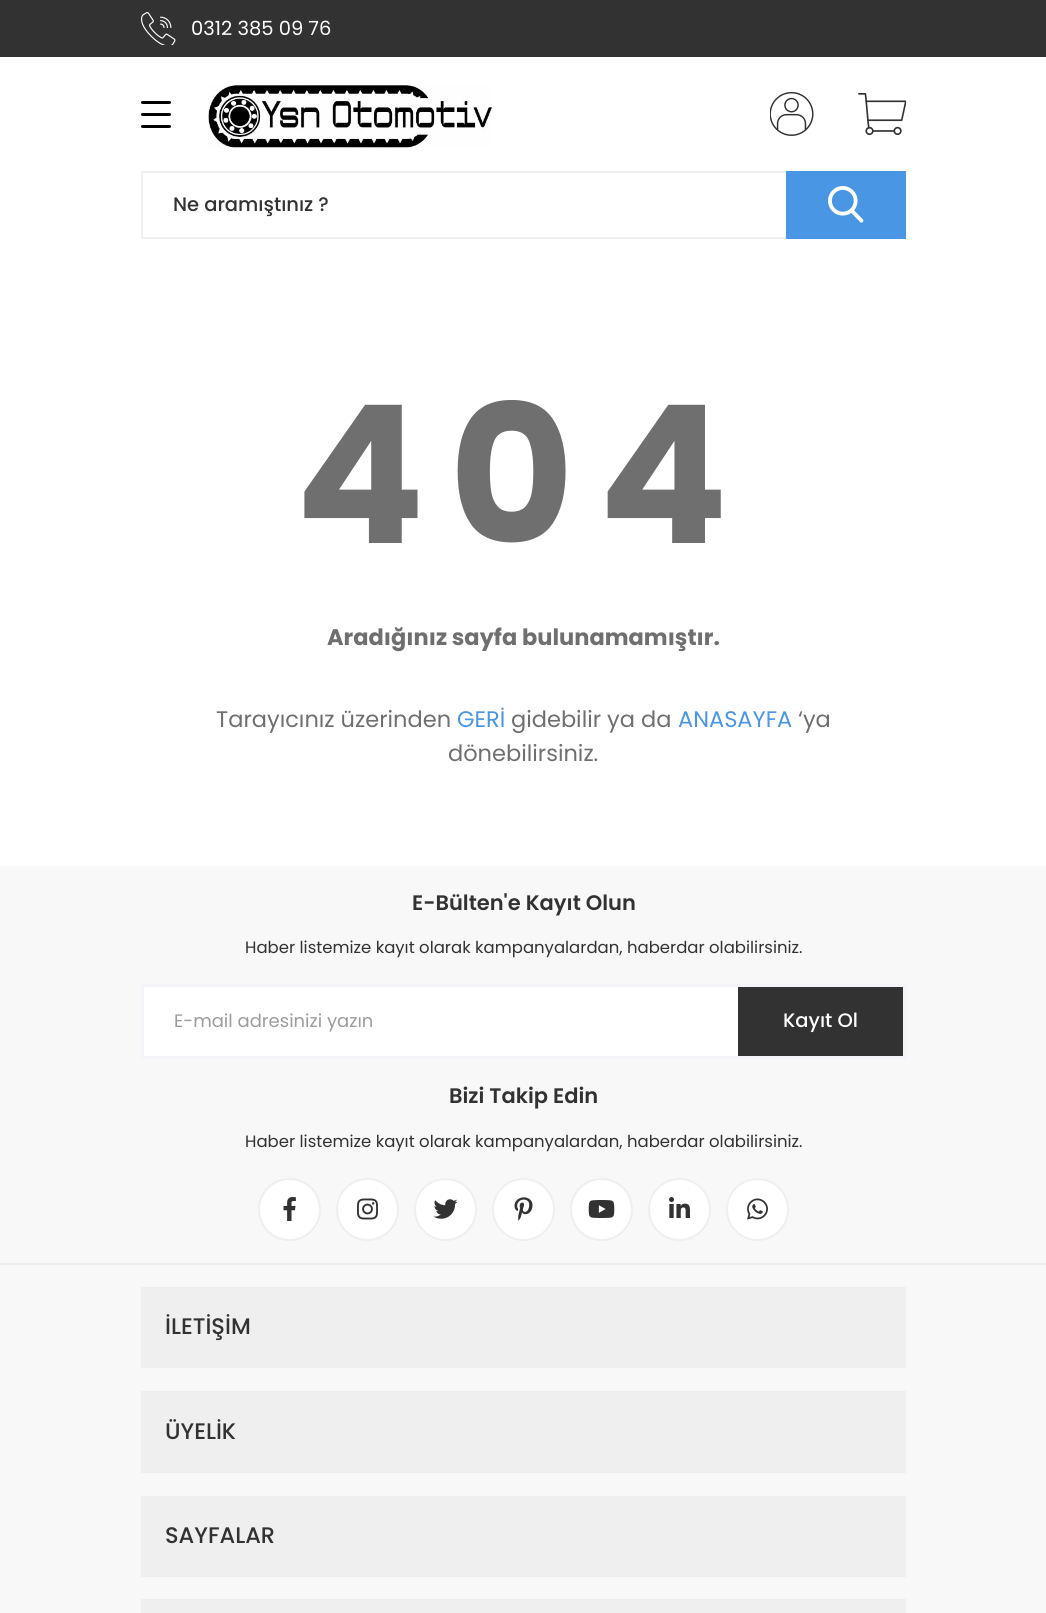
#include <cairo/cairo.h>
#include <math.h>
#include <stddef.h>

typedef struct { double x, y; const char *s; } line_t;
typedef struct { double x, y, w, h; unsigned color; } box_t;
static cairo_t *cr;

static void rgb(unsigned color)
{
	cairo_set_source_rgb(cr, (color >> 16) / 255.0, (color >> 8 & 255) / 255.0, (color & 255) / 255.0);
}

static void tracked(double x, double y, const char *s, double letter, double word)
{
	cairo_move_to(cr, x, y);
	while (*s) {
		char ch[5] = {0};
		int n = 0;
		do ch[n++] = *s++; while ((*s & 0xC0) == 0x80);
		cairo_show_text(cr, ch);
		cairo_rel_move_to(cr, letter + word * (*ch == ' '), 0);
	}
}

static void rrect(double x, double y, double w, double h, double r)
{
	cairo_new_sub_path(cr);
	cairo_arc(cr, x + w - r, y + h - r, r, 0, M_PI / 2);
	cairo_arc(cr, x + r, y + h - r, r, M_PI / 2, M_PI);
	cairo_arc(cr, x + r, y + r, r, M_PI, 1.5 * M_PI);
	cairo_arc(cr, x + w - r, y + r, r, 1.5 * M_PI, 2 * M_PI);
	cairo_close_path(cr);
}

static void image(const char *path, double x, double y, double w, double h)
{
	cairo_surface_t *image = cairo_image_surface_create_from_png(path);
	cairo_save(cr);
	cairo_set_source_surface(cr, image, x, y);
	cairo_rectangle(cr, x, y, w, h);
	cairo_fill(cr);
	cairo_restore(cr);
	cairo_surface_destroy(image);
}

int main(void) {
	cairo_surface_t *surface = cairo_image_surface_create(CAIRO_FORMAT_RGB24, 1046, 1613);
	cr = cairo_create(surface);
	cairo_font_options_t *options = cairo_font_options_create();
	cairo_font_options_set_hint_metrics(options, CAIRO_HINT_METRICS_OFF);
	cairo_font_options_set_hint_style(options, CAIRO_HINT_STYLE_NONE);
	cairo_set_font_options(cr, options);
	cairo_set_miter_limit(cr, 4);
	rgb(0xffffff);
	cairo_paint(cr);
	rgb(0x323232);
	cairo_rectangle(cr, 0, 0, 1046, 57);
	cairo_fill(cr);
	image("img/1.png", 141, 12, 35, 33);
	rgb(0x000000);
	rrect(141, 101, 30, 3, 1.5);
	cairo_fill(cr);
	rrect(141, 113, 30, 3, 1.5);
	cairo_fill(cr);
	rrect(141, 125, 30, 3, 1.5);
	cairo_fill(cr);
	image("img/2.png", 208, 85, 284, 63);
	image("img/3.png", 770, 91, 44, 45);
	image("img/4.png", 858, 93, 48, 43);
	cairo_rectangle(cr, 142, 172, 763, 66);
	rgb(0xefefef);
	cairo_stroke(cr);
	rgb(0x4996e5);
	cairo_rectangle(cr, 786, 171, 120, 68);
	cairo_fill(cr);
	image("img/5.png", 828, 186, 36, 37);
	rgb(0xf8f8f8);
	cairo_rectangle(cr, 0, 866, 1046, 747);
	cairo_fill(cr);
	rgb(0xffffff);
	cairo_rectangle(cr, 144, 987, 594, 69);
	cairo_fill(cr);
	cairo_rectangle(cr, 142.5, 985.5, 762, 72);
	rgb(0xf3f5f9);
	cairo_set_line_width(cr, 3);
	cairo_stroke(cr);
	rgb(0x323232);
	cairo_rectangle(cr, 738, 987, 165, 69);
	cairo_fill(cr);
	rgb(0xffffff);
	cairo_arc(cr, 289.5, 1209.5, 30.5, 0, 2 * M_PI);
	cairo_fill_preserve(cr);
	rgb(0xefefef);
	cairo_set_line_width(cr, 2);
	cairo_stroke(cr);
	image("img/6.png", 283, 1197, 13, 24);
	rgb(0xffffff);
	cairo_arc(cr, 367.5, 1209.5, 30.5, 0, 2 * M_PI);
	cairo_fill_preserve(cr);
	rgb(0xefefef);
	cairo_stroke(cr);
	image("img/7.png", 357, 1198, 21, 22);
	rgb(0xffffff);
	cairo_arc(cr, 445.5, 1209.5, 30.5, 0, 2 * M_PI);
	cairo_fill_preserve(cr);
	rgb(0xefefef);
	cairo_stroke(cr);
	image("img/8.png", 433, 1199, 25, 20);
	rgb(0xffffff);
	cairo_arc(cr, 523.5, 1209.5, 30.5, 0, 2 * M_PI);
	cairo_fill_preserve(cr);
	rgb(0xefefef);
	cairo_stroke(cr);
	image("img/9.png", 514, 1197, 19, 24);
	rgb(0xffffff);
	cairo_arc(cr, 601.5, 1209.5, 30.5, 0, 2 * M_PI);
	cairo_fill_preserve(cr);
	rgb(0xefefef);
	cairo_stroke(cr);
	image("img/10.png", 588, 1200, 27, 18);
	rgb(0xffffff);
	cairo_arc(cr, 679.5, 1209.5, 30.5, 0, 2 * M_PI);
	cairo_fill_preserve(cr);
	rgb(0xefefef);
	cairo_stroke(cr);
	image("img/11.png", 669, 1197, 21, 21);
	rgb(0xffffff);
	cairo_arc(cr, 757.5, 1209.5, 30.5, 0, 2 * M_PI);
	cairo_fill_preserve(cr);
	rgb(0xefefef);
	cairo_stroke(cr);
	image("img/12.png", 747, 1198, 21, 22);
	{
		static const box_t items[] = {
			{0, 1263, 1046, 2, 0xefefef},
			{141, 1287, 765, 81, 0xefefef},
			{141, 1391, 765, 82, 0xefefef},
			{141, 1496, 765, 81, 0xefefef},
			{141, 1599, 765, 14, 0xefefef},
		};
		for (size_t i = 0; i < sizeof items / sizeof *items; i++) {
			rgb(items[i].color);
			cairo_rectangle(cr, items[i].x, items[i].y, items[i].w, items[i].h);
			cairo_fill(cr);
		}
	}
	cairo_select_font_face(cr, "Poppins", CAIRO_FONT_SLANT_NORMAL, CAIRO_FONT_WEIGHT_NORMAL);
	cairo_set_font_size(cr, 19.5);
	rgb(0xffffff);
	cairo_move_to(cr, 191, 35);
	cairo_show_text(cr, "0312 385 09 76");
	cairo_select_font_face(cr, "Poppins Medium", CAIRO_FONT_SLANT_NORMAL, CAIRO_FONT_WEIGHT_NORMAL);
	rgb(0x323232);
	cairo_move_to(cr, 173, 211);
	cairo_show_text(cr, "Ne aramıştınız ?");
	cairo_select_font_face(cr, "Poppins", CAIRO_FONT_SLANT_NORMAL, CAIRO_FONT_WEIGHT_BOLD);
	cairo_set_font_size(cr, 192);
	rgb(0x6f6f6f);
	tracked(295, 543, "404", 24, 0);
	cairo_set_font_size(cr, 22.5);
	cairo_move_to(cr, 327, 645);
	cairo_show_text(cr, "Aradığınız sayfa bulunamamıştır.");
	cairo_select_font_face(cr, "Poppins", CAIRO_FONT_SLANT_NORMAL, CAIRO_FONT_WEIGHT_NORMAL);
	cairo_move_to(cr, 216, 727);
	cairo_show_text(cr, "Tarayıcınız üzerinden");
	rgb(0x4996e5);
	cairo_move_to(cr, 457, 727);
	cairo_show_text(cr, "GERİ");
	rgb(0x6f6f6f);
	cairo_move_to(cr, 511, 727);
	cairo_show_text(cr, "gidebilir ya da");
	rgb(0x4996e5);
	cairo_move_to(cr, 678, 727);
	cairo_show_text(cr, "ANASAYFA");
	rgb(0x6f6f6f);
	cairo_move_to(cr, 798, 727);
	cairo_show_text(cr, "‘ya");
	cairo_move_to(cr, 448, 761);
	cairo_show_text(cr, "dönebilirsiniz.");
	cairo_select_font_face(cr, "Poppins SemiBold", CAIRO_FONT_SLANT_NORMAL, CAIRO_FONT_WEIGHT_NORMAL);
	cairo_set_font_size(cr, 21);
	rgb(0x323232);
	cairo_move_to(cr, 412, 910);
	cairo_show_text(cr, "E-Bülten'e Kayıt Olun");
	cairo_select_font_face(cr, "Poppins", CAIRO_FONT_SLANT_NORMAL, CAIRO_FONT_WEIGHT_NORMAL);
	cairo_set_font_size(cr, 16.5);
	cairo_move_to(cr, 245, 953);
	cairo_show_text(cr, "Haber listemize kayıt olarak kampanyalardan, haberdar olabilirsiniz.");
	cairo_set_font_size(cr, 18);
	rgb(0x9c9c9c);
	cairo_move_to(cr, 174, 1027);
	cairo_show_text(cr, "E-mail adresinizi yazın");
	cairo_select_font_face(cr, "Poppins Medium", CAIRO_FONT_SLANT_NORMAL, CAIRO_FONT_WEIGHT_NORMAL);
	cairo_set_font_size(cr, 19.5);
	rgb(0xffffff);
	cairo_move_to(cr, 783, 1027);
	cairo_show_text(cr, "Kayıt Ol");
	cairo_select_font_face(cr, "Poppins SemiBold", CAIRO_FONT_SLANT_NORMAL, CAIRO_FONT_WEIGHT_NORMAL);
	cairo_set_font_size(cr, 21);
	rgb(0x323232);
	cairo_move_to(cr, 449, 1103);
	cairo_show_text(cr, "Bizi Takip Edin");
	cairo_select_font_face(cr, "Poppins", CAIRO_FONT_SLANT_NORMAL, CAIRO_FONT_WEIGHT_NORMAL);
	cairo_set_font_size(cr, 16.5);
	cairo_move_to(cr, 245, 1147);
	cairo_show_text(cr, "Haber listemize kayıt olarak kampanyalardan, haberdar olabilirsiniz.");
	cairo_select_font_face(cr, "Poppins Medium", CAIRO_FONT_SLANT_NORMAL, CAIRO_FONT_WEIGHT_NORMAL);
	cairo_set_font_size(cr, 22.5);
	{
		static const line_t items[] = {
			{165, 1334, "İLETİŞİM"},
			{165, 1439, "ÜYELİK"},
			{165, 1543, "SAYFALAR"},
		};
		for (size_t i = 0; i < sizeof items / sizeof *items; i++) {
			cairo_move_to(cr, items[i].x, items[i].y);
			cairo_show_text(cr, items[i].s);
		}
	}
	cairo_surface_write_to_png(surface, "page.png");
	cairo_font_options_destroy(options);
	cairo_destroy(cr);
	cairo_surface_destroy(surface);
	return 0;
}
